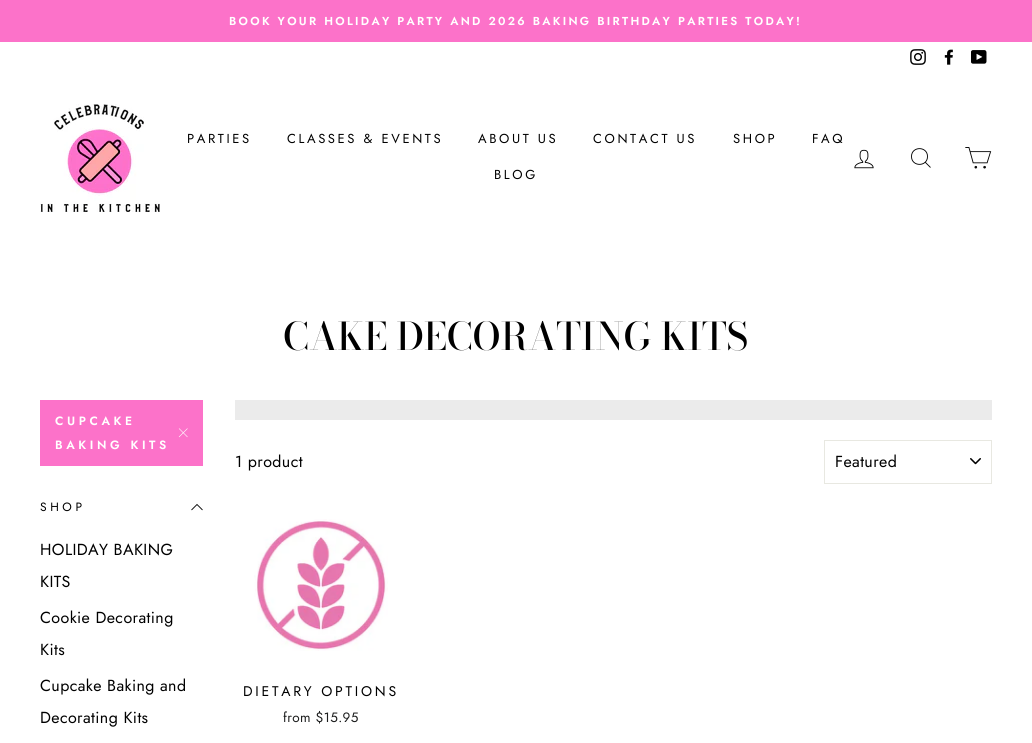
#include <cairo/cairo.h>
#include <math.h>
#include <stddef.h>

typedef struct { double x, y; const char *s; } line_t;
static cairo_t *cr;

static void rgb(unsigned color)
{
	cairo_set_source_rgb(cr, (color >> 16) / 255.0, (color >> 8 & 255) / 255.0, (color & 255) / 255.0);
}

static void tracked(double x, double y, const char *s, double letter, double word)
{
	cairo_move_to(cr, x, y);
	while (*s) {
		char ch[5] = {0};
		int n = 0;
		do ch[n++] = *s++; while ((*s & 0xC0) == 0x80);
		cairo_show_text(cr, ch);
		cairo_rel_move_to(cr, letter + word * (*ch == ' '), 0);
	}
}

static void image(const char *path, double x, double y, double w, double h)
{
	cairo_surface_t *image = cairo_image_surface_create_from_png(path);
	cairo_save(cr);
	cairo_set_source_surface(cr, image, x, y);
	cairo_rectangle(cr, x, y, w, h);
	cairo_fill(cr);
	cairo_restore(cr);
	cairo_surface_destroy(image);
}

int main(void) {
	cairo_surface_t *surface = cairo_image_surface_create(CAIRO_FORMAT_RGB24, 1032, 743);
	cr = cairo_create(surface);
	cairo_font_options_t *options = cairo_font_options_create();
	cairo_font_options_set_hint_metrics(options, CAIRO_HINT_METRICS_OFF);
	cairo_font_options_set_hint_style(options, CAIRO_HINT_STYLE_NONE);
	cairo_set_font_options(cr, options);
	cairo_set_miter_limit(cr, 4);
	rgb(0xffffff);
	cairo_paint(cr);
	rgb(0xfc72c9);
	cairo_rectangle(cr, 0, 0, 1032, 42);
	cairo_fill(cr);
	image("img/1.png", 910, 49, 16, 16);
	image("img/2.png", 944, 49, 9, 16);
	image("img/3.png", 971, 50, 16, 14);
	image("img/4.png", 40, 104, 120, 108);
	image("img/5.png", 854, 149, 20, 20);
	cairo_new_path(cr);
	cairo_move_to(cr, 927.5, 156.5);
	cairo_curve_to(cr, 927.5, 167, 911.5, 167, 911.5, 156.5);
	cairo_curve_to(cr, 911.5, 146, 927.5, 146, 927.5, 156.5);
	cairo_close_path(cr);
	cairo_move_to(cr, 930.5, 167.5);
	cairo_line_to(cr, 925.5, 162.5);
	rgb(0x000000);
	cairo_set_line_width(cr, 0.9);
	cairo_stroke(cr);
	image("img/6.png", 965, 147, 27, 22);
	rgb(0xfc72c9);
	cairo_rectangle(cr, 40, 400, 163, 66);
	cairo_fill(cr);
	cairo_new_path(cr);
	cairo_move_to(cr, 179, 428.5);
	cairo_line_to(cr, 187.5, 437);
	cairo_move_to(cr, 187.5, 428.5);
	cairo_line_to(cr, 179, 437);
	rgb(0xffffff);
	cairo_set_line_width(cr, 0.6);
	cairo_stroke(cr);
	cairo_new_path(cr);
	cairo_move_to(cr, 191.5, 510);
	cairo_line_to(cr, 197, 504.5);
	cairo_line_to(cr, 202.5, 510);
	rgb(0x000000);
	cairo_set_line_width(cr, 0.9);
	cairo_stroke(cr);
	rgb(0xebebeb);
	cairo_rectangle(cr, 235, 400, 757, 20);
	cairo_fill(cr);
	image("img/7.png", 970, 458, 11, 7);
	cairo_rectangle(cr, 824.5, 440.5, 167, 43);
	rgb(0xe8e8e1);
	cairo_set_line_width(cr, 1);
	cairo_stroke(cr);
	image("img/8.png", 254, 519, 134, 132);
	cairo_select_font_face(cr, "Jost SemiBold", CAIRO_FONT_SLANT_NORMAL, CAIRO_FONT_WEIGHT_NORMAL);
	cairo_set_font_size(cr, 11.55);
	rgb(0xffffff);
	tracked(229, 25, "BOOK YOUR HOLIDAY PARTY AND 2026 BAKING BIRTHDAY PARTIES TODAY!", 2.3, 0);
	cairo_select_font_face(cr, "Jost", CAIRO_FONT_SLANT_NORMAL, CAIRO_FONT_WEIGHT_NORMAL);
	cairo_set_font_size(cr, 13);
	rgb(0x000000);
	{
		static const line_t items[] = {
			{187, 143, "PARTIES"},
			{287, 143, "CLASSES & EVENTS"},
			{478, 143, "ABOUT US"},
			{593, 143, "CONTACT US"},
			{733, 143, "SHOP"},
			{812, 143, "FAQ"},
			{494, 179, "BLOG"},
		};
		for (size_t i = 0; i < sizeof items / sizeof *items; i++) {
			tracked(items[i].x, items[i].y, items[i].s, 2.6, 0);
		}
	}
	cairo_select_font_face(cr, "Bodoni Moda Medium", CAIRO_FONT_SLANT_NORMAL, CAIRO_FONT_WEIGHT_NORMAL);
	cairo_set_font_size(cr, 38);
	cairo_move_to(cr, 283, 350);
	cairo_show_text(cr, "CAKE DECORATING KITS");
	cairo_select_font_face(cr, "Jost SemiBold", CAIRO_FONT_SLANT_NORMAL, CAIRO_FONT_WEIGHT_NORMAL);
	cairo_set_font_size(cr, 12);
	rgb(0xffffff);
	tracked(55, 425, "CUPCAKE", 3.6, 0);
	tracked(55, 449, "BAKING KITS", 3.6, 0);
	cairo_select_font_face(cr, "Jost", CAIRO_FONT_SLANT_NORMAL, CAIRO_FONT_WEIGHT_NORMAL);
	rgb(0x000000);
	tracked(40, 511, "SHOP", 3.6, 0);
	cairo_set_font_size(cr, 16);
	{
		static const line_t items[] = {
			{40, 555, "HOLIDAY BAKING"},
			{40, 587, "KITS"},
			{40, 623, "Cookie Decorating"},
			{40, 655, "Kits"},
			{40, 691, "Cupcake Baking and"},
			{40, 723, "Decorating Kits"},
			{235, 467, "1 product"},
			{835, 467, "Featured"},
		};
		for (size_t i = 0; i < sizeof items / sizeof *items; i++) {
			tracked(items[i].x, items[i].y, items[i].s, 0.4, 0);
		}
	}
	cairo_set_font_size(cr, 14);
	tracked(243, 696, "DIETARY OPTIONS", 2.75, 0);
	cairo_set_font_size(cr, 13.5);
	rgb(0x1c1d1d);
	tracked(283, 722, "from $15.95", 0.4, 0);
	cairo_surface_write_to_png(surface, "page.png");
	cairo_font_options_destroy(options);
	cairo_destroy(cr);
	cairo_surface_destroy(surface);
	return 0;
}
